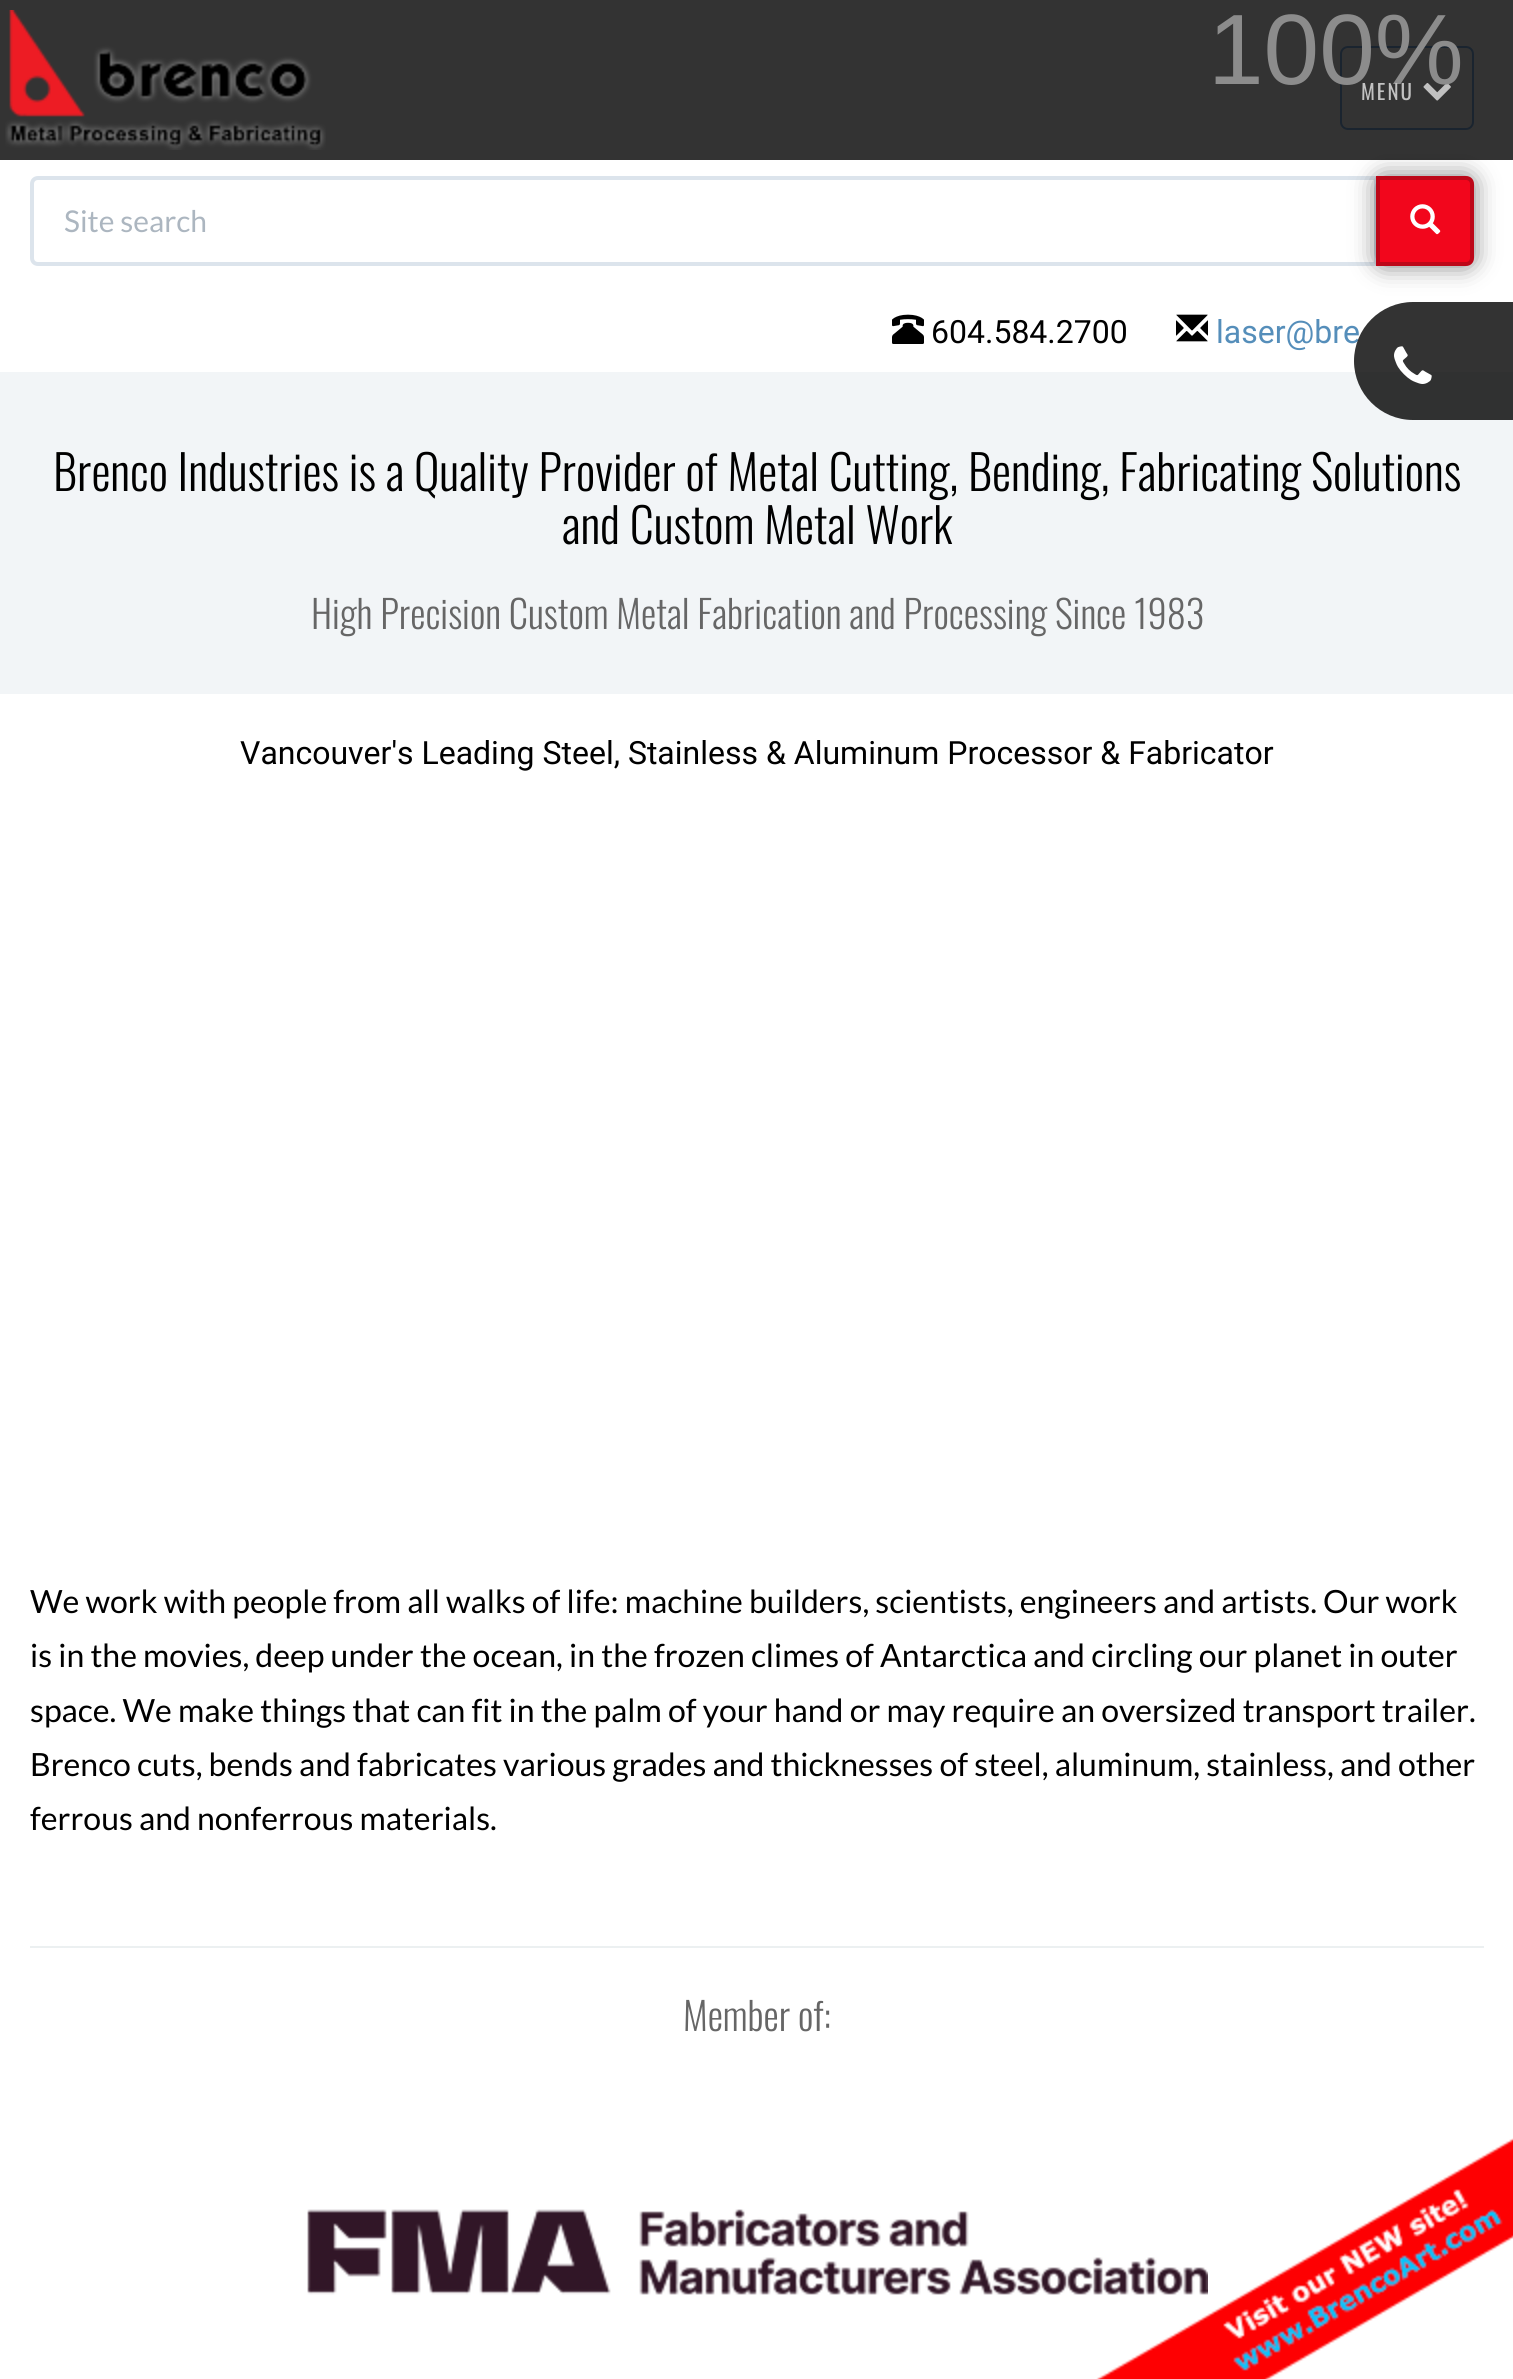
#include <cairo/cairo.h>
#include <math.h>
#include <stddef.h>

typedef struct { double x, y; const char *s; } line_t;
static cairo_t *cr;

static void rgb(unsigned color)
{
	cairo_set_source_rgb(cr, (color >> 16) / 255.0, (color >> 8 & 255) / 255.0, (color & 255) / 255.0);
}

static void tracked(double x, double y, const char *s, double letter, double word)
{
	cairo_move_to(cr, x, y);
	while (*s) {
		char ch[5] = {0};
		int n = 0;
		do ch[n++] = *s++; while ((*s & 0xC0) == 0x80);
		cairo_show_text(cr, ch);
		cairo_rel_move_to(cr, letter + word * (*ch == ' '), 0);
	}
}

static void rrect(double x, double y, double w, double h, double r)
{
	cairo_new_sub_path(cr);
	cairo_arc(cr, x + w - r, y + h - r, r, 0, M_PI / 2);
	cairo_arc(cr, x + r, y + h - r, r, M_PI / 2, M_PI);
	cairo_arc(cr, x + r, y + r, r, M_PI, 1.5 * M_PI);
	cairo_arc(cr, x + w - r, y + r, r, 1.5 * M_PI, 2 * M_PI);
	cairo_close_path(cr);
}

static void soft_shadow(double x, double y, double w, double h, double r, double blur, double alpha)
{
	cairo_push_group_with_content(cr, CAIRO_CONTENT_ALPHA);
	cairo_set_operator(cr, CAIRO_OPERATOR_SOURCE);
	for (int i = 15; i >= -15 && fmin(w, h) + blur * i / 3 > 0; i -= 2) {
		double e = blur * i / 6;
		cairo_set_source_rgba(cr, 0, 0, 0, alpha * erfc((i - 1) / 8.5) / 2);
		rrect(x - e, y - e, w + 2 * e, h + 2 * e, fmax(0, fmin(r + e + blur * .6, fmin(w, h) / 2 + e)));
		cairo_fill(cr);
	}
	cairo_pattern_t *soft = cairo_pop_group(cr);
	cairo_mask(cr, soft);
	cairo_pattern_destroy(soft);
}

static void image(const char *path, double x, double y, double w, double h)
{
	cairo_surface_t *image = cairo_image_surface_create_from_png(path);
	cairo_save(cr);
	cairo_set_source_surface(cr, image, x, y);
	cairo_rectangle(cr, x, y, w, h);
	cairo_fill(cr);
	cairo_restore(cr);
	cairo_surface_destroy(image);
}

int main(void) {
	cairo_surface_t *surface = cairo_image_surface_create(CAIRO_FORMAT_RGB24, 1513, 2379);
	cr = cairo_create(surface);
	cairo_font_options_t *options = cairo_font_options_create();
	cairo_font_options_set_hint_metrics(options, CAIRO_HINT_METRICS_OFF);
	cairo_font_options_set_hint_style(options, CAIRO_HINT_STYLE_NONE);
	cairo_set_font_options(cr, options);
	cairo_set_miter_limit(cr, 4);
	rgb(0xffffff);
	cairo_paint(cr);
	cairo_new_path(cr);
	cairo_move_to(cr, 38, 178);
	cairo_line_to(cr, 1376, 178);
	cairo_line_to(cr, 1376, 264);
	cairo_line_to(cr, 38, 264);
	cairo_curve_to(cr, 34.5, 264, 32, 261.5, 32, 258);
	cairo_line_to(cr, 32, 184);
	cairo_curve_to(cr, 32, 180.5, 34.5, 178, 38, 178);
	cairo_close_path(cr);
	rgb(0xdce4ec);
	cairo_set_line_width(cr, 4);
	cairo_stroke(cr);
	rgb(0x000000);
	soft_shadow(1376, 176, 98, 90, 8, 12, 0.5);
	cairo_set_source_rgba(cr, 0, 0, 0, 0.8);
	cairo_rectangle(cr, 0, 0, 1513, 160);
	cairo_fill(cr);
	image("img/1.png", 5, 10, 321, 140);
	rrect(1341, 47, 132, 82, 7);
	rgb(0x1a242f);
	cairo_set_line_width(cr, 2);
	cairo_stroke(cr);
	image("img/2.png", 1423, 83, 28, 18);
	rgb(0xf2061c);
	cairo_new_path(cr);
	cairo_move_to(cr, 1378, 178);
	cairo_line_to(cr, 1466, 178);
	cairo_curve_to(cr, 1469.5, 178, 1472, 180.5, 1472, 184);
	cairo_line_to(cr, 1472, 258);
	cairo_curve_to(cr, 1472, 261.5, 1469.5, 264, 1466, 264);
	cairo_line_to(cr, 1378, 264);
	cairo_close_path(cr);
	cairo_fill_preserve(cr);
	rgb(0xbd0718);
	cairo_set_line_width(cr, 4);
	cairo_stroke(cr);
	image("img/3.png", 1410, 204, 31, 31);
	image("img/4.png", 892, 314, 32, 30);
	image("img/5.png", 1176, 314, 32, 28);
	rgb(0xf2f5f7);
	cairo_rectangle(cr, 0, 372, 1513, 322);
	cairo_fill(cr);
	rgb(0xecf0f1);
	cairo_rectangle(cr, 30, 1946, 1454, 2);
	cairo_fill(cr);
	image("img/7.png", 307, 2209, 901, 86);
	image("img/8.png", 1096, 2138, 417, 241);
	cairo_select_font_face(cr, "Liberation Sans", CAIRO_FONT_SLANT_NORMAL, CAIRO_FONT_WEIGHT_NORMAL);
	cairo_set_font_size(cr, 100);
	rgb(0x8c8c8c);
	cairo_move_to(cr, 1208, 84);
	cairo_show_text(cr, "100%");
	cairo_select_font_face(cr, "Oswald", CAIRO_FONT_SLANT_NORMAL, CAIRO_FONT_WEIGHT_NORMAL);
	cairo_set_font_size(cr, 21);
	rgb(0xc2c2c2);
	tracked(1361, 100, "MENU", 2, 0);
	cairo_select_font_face(cr, "Lato", CAIRO_FONT_SLANT_NORMAL, CAIRO_FONT_WEIGHT_NORMAL);
	cairo_set_font_size(cr, 30);
	rgb(0xacb6c0);
	cairo_move_to(cr, 64, 232);
	cairo_show_text(cr, "Site search");
	cairo_select_font_face(cr, "Roboto", CAIRO_FONT_SLANT_NORMAL, CAIRO_FONT_WEIGHT_NORMAL);
	cairo_set_font_size(cr, 32);
	rgb(0x000000);
	cairo_move_to(cr, 931, 343);
	cairo_show_text(cr, "604.584.2700");
	rgb(0x558eba);
	cairo_move_to(cr, 1216, 343);
	cairo_show_text(cr, "laser@bre");
	cairo_set_source_rgba(cr, 0, 0, 0, 0.8);
	cairo_new_path(cr);
	cairo_move_to(cr, 1413, 302);
	cairo_line_to(cr, 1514, 302);
	cairo_line_to(cr, 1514, 420);
	cairo_line_to(cr, 1413, 420);
	cairo_curve_to(cr, 1380.5, 420, 1354, 393.5, 1354, 361);
	cairo_curve_to(cr, 1354, 328.5, 1380.5, 302, 1413, 302);
	cairo_close_path(cr);
	cairo_fill(cr);
	image("img/6.png", 1394, 346, 38, 38);
	cairo_select_font_face(cr, "Oswald Light", CAIRO_FONT_SLANT_NORMAL, CAIRO_FONT_WEIGHT_NORMAL);
	cairo_set_font_size(cr, 48);
	rgb(0x000000);
	cairo_move_to(cr, 53, 491);
	cairo_show_text(cr, "Brenco Industries is a Quality Provider of Metal Cutting, Bending, Fabricating Solutions");
	cairo_move_to(cr, 562, 544);
	cairo_show_text(cr, "and Custom Metal Work");
	cairo_set_font_size(cr, 38.4);
	rgb(0x666666);
	cairo_move_to(cr, 311, 629);
	cairo_show_text(cr, "High Precision Custom Metal Fabrication and Processing Since 1983");
	cairo_select_font_face(cr, "Roboto", CAIRO_FONT_SLANT_NORMAL, CAIRO_FONT_WEIGHT_NORMAL);
	cairo_set_font_size(cr, 32);
	rgb(0x000000);
	cairo_move_to(cr, 240, 764);
	cairo_show_text(cr, "Vancouver's Leading Steel, Stainless & Aluminum Processor & Fabricator");
	cairo_select_font_face(cr, "Lato", CAIRO_FONT_SLANT_NORMAL, CAIRO_FONT_WEIGHT_NORMAL);
	{
		static const line_t items[] = {
			{30, 1613, "We work with people from all walks of life: machine builders, scientists, engineers and artists. Our work"},
			{30, 1667, "is in the movies, deep under the ocean, in the frozen climes of Antarctica and circling our planet in outer"},
			{30, 1722, "space. We make things that can fit in the palm of your hand or may require an oversized transport trailer."},
			{30, 1776, "Brenco cuts, bends and fabricates various grades and thicknesses of steel, aluminum, stainless, and other"},
			{30, 1830, "ferrous and nonferrous materials."},
		};
		for (size_t i = 0; i < sizeof items / sizeof *items; i++) {
			cairo_move_to(cr, items[i].x, items[i].y);
			cairo_show_text(cr, items[i].s);
		}
	}
	cairo_select_font_face(cr, "Oswald Light", CAIRO_FONT_SLANT_NORMAL, CAIRO_FONT_WEIGHT_NORMAL);
	cairo_set_font_size(cr, 38.4);
	rgb(0x666666);
	cairo_move_to(cr, 683, 2031);
	cairo_show_text(cr, "Member of:");
	cairo_surface_write_to_png(surface, "page.png");
	cairo_font_options_destroy(options);
	cairo_destroy(cr);
	cairo_surface_destroy(surface);
	return 0;
}
